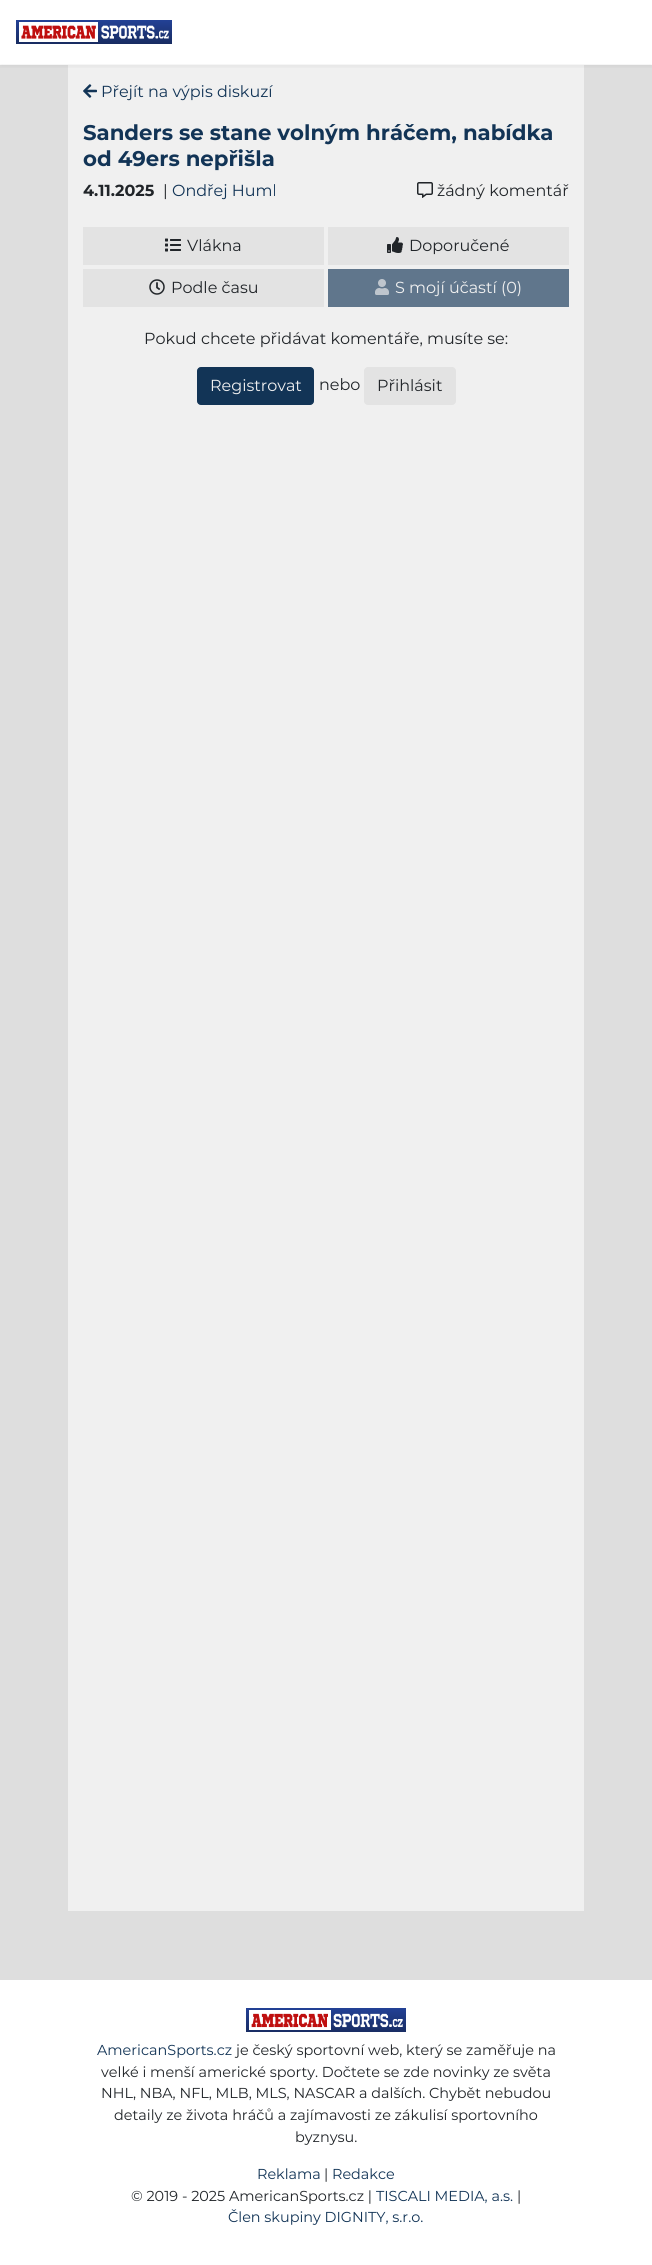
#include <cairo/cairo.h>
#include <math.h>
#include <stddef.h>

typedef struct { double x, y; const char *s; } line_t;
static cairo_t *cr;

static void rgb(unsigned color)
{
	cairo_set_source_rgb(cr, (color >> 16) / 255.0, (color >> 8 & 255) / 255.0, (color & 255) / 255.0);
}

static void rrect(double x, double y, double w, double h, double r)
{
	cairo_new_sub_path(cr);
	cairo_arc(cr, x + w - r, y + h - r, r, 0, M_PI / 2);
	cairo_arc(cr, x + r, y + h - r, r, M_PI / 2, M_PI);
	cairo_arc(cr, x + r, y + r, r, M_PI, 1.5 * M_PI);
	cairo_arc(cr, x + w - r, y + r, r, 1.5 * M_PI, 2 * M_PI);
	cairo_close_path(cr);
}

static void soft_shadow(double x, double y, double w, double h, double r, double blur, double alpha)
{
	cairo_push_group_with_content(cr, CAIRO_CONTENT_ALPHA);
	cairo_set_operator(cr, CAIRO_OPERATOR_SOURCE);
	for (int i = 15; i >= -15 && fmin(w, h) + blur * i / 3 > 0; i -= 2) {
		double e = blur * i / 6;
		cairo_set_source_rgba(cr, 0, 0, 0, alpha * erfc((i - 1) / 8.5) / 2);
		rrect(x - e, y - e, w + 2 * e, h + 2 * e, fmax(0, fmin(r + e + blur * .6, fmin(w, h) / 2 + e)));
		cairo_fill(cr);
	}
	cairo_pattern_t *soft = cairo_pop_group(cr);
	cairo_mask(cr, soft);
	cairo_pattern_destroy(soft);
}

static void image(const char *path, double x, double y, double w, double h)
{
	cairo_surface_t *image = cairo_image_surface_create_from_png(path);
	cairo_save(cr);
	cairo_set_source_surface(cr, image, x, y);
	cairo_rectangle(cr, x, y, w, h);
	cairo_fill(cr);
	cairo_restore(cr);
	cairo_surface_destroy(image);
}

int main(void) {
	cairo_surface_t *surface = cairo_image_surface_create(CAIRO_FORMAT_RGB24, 652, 2265);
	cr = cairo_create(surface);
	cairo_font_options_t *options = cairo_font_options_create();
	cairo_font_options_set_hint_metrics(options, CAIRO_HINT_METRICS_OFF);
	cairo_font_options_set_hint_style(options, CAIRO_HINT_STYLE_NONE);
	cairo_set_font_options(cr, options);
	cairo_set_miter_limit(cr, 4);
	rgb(0xdedede);
	cairo_paint(cr);
	rgb(0xffffff);
	cairo_rectangle(cr, 0, 0, 652, 65);
	cairo_fill(cr);
	rgb(0xf0f0f0);
	cairo_rectangle(cr, 68, 65, 516, 1846);
	cairo_fill(cr);
	cairo_save(cr);
	cairo_rectangle(cr, 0, 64, 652, 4);
	cairo_clip(cr);
	rgb(0x000000);
	soft_shadow(0, 3, 652, 64, 0, 3, 0.05);
	cairo_restore(cr);
	image("img/1.png", 16, 20, 156, 24);
	image("img/2.png", 83, 84, 14, 14);
	image("img/3.png", 417, 182, 16, 16);
	rgb(0xe3e3e3);
	cairo_rectangle(cr, 83, 227, 241, 38);
	cairo_fill(cr);
	image("img/4.png", 165, 238, 16, 14);
	cairo_rectangle(cr, 328, 227, 241, 38);
	cairo_fill(cr);
	image("img/5.png", 387, 237, 16, 16);
	cairo_rectangle(cr, 83, 269, 241, 38);
	cairo_fill(cr);
	image("img/6.png", 149, 279, 16, 16);
	rgb(0x60768c);
	cairo_rectangle(cr, 328, 269, 241, 38);
	cairo_fill(cr);
	image("img/7.png", 375, 279, 14, 16);
	rgb(0x123456);
	rrect(197.5, 367.5, 116, 37, 3.5);
	cairo_fill_preserve(cr);
	cairo_set_line_width(cr, 1);
	cairo_stroke(cr);
	rgb(0xe3e3e3);
	rrect(364, 367, 92, 38, 4);
	cairo_fill(cr);
	rgb(0xffffff);
	cairo_rectangle(cr, 0, 1980, 652, 285);
	cairo_fill(cr);
	image("img/8.png", 246, 2008, 160, 24);
	cairo_select_font_face(cr, "Montserrat", CAIRO_FONT_SLANT_NORMAL, CAIRO_FONT_WEIGHT_NORMAL);
	cairo_set_font_size(cr, 16);
	rgb(0x123456);
	cairo_move_to(cr, 101, 97);
	cairo_show_text(cr, "Přejít na výpis diskuzí");
	cairo_select_font_face(cr, "Montserrat", CAIRO_FONT_SLANT_NORMAL, CAIRO_FONT_WEIGHT_BOLD);
	cairo_set_font_size(cr, 21.25);
	cairo_move_to(cr, 83, 140);
	cairo_show_text(cr, "Sanders se stane volným hráčem, nabídka");
	cairo_move_to(cr, 83, 166);
	cairo_show_text(cr, "od 49ers nepřišla");
	cairo_set_font_size(cr, 16);
	rgb(0x212529);
	cairo_move_to(cr, 83, 196);
	cairo_show_text(cr, "4.11.2025");
	cairo_select_font_face(cr, "Montserrat", CAIRO_FONT_SLANT_NORMAL, CAIRO_FONT_WEIGHT_NORMAL);
	cairo_move_to(cr, 163, 196);
	cairo_show_text(cr, "|");
	rgb(0x123456);
	cairo_move_to(cr, 172, 196);
	cairo_show_text(cr, "Ondřej Huml");
	rgb(0x212529);
	{
		static const line_t items[] = {
			{437, 196, "žádný komentář"},
			{187, 251, "Vlákna"},
			{409, 251, "Doporučené"},
			{171, 293, "Podle času"},
		};
		for (size_t i = 0; i < sizeof items / sizeof *items; i++) {
			cairo_move_to(cr, items[i].x, items[i].y);
			cairo_show_text(cr, items[i].s);
		}
	}
	rgb(0xf0f0f0);
	cairo_move_to(cr, 395, 293);
	cairo_show_text(cr, "S mojí účastí (0)");
	rgb(0x212529);
	cairo_move_to(cr, 144, 344);
	cairo_show_text(cr, "Pokud chcete přidávat komentáře, musíte se:");
	rgb(0xf0f0f0);
	cairo_move_to(cr, 210, 391);
	cairo_show_text(cr, "Registrovat");
	rgb(0x212529);
	cairo_move_to(cr, 319, 390);
	cairo_show_text(cr, "nebo");
	cairo_move_to(cr, 377, 391);
	cairo_show_text(cr, "Přihlásit");
	cairo_set_font_size(cr, 14.4);
	rgb(0x123456);
	cairo_move_to(cr, 97, 2055);
	cairo_show_text(cr, "AmericanSports.cz");
	rgb(0x212529);
	{
		static const line_t items[] = {
			{236, 2055, "je český sportovní web, který se zaměřuje na"},
			{101, 2077, "velké i menší americké sporty. Dočtete se zde novinky ze světa"},
			{101, 2098, "NHL, NBA, NFL, MLB, MLS, NASCAR a dalších. Chybět nebudou"},
			{114, 2120, "detaily ze života hráčů a zajímavosti ze zákulisí sportovního"},
			{295, 2142, "byznysu."},
		};
		for (size_t i = 0; i < sizeof items / sizeof *items; i++) {
			cairo_move_to(cr, items[i].x, items[i].y);
			cairo_show_text(cr, items[i].s);
		}
	}
	rgb(0x123456);
	cairo_move_to(cr, 257, 2179);
	cairo_show_text(cr, "Reklama");
	rgb(0x212529);
	cairo_move_to(cr, 324, 2179);
	cairo_show_text(cr, "|");
	rgb(0x123456);
	cairo_move_to(cr, 332, 2179);
	cairo_show_text(cr, "Redakce");
	rgb(0x212529);
	cairo_move_to(cr, 131, 2201);
	cairo_show_text(cr, "© 2019 - 2025 AmericanSports.cz |");
	rgb(0x123456);
	cairo_move_to(cr, 376, 2201);
	cairo_show_text(cr, "TISCALI MEDIA, a.s.");
	rgb(0x212529);
	cairo_move_to(cr, 517, 2201);
	cairo_show_text(cr, "|");
	rgb(0x123456);
	cairo_move_to(cr, 228, 2222);
	cairo_show_text(cr, "Člen skupiny DIGNITY, s.r.o.");
	cairo_surface_write_to_png(surface, "page.png");
	cairo_font_options_destroy(options);
	cairo_destroy(cr);
	cairo_surface_destroy(surface);
	return 0;
}
